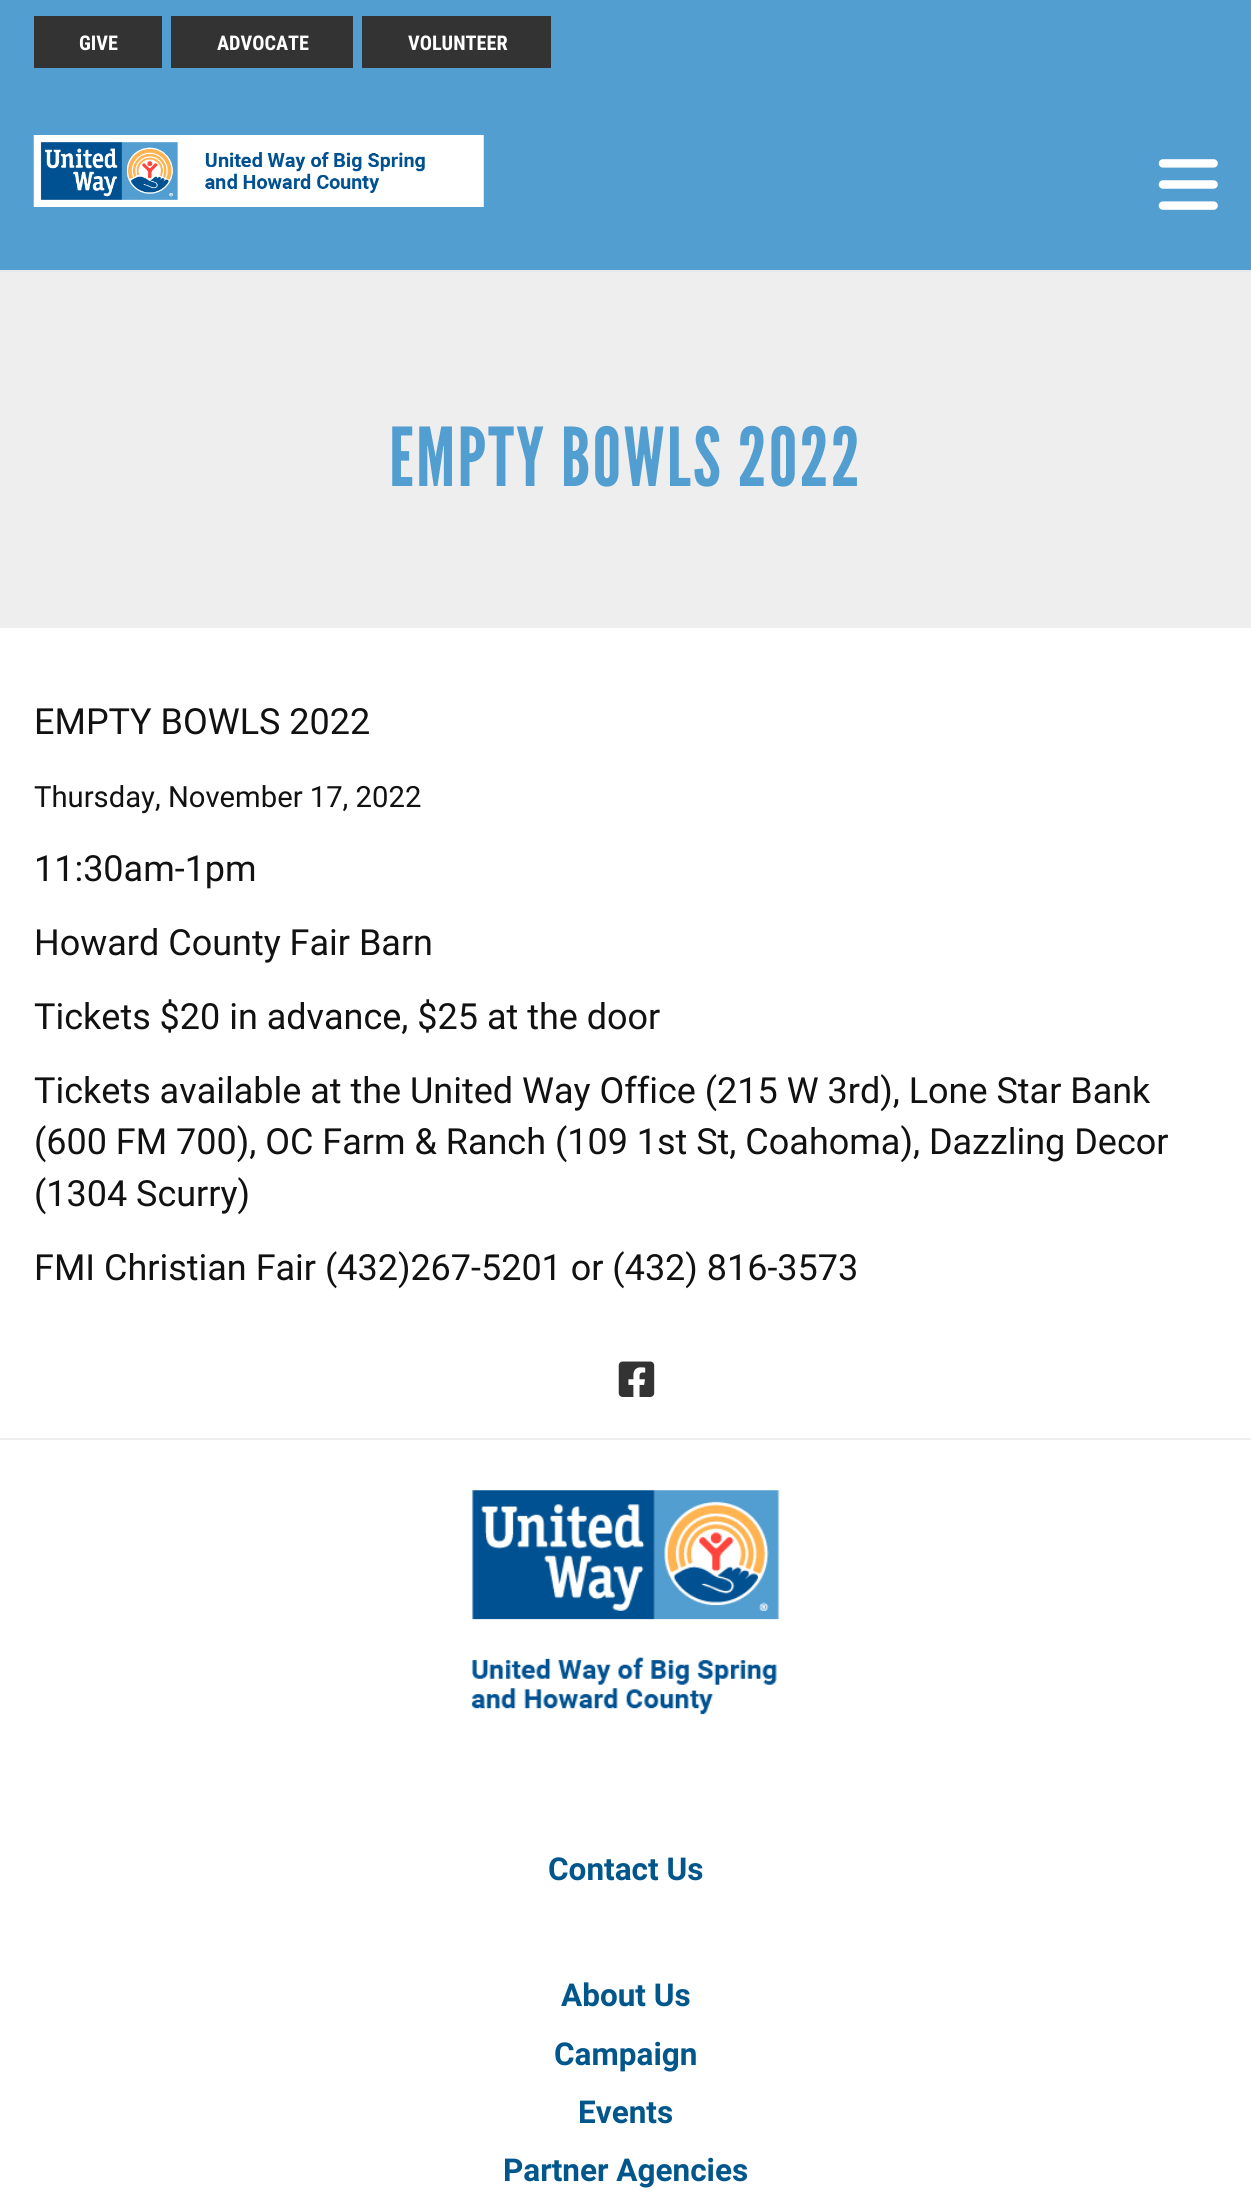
#include <cairo/cairo.h>
#include <math.h>
#include <stddef.h>

typedef struct { double x, y; const char *s; } line_t;
typedef struct { double x, y, w, h; unsigned color; } box_t;
static cairo_t *cr;

static void rgb(unsigned color)
{
	cairo_set_source_rgb(cr, (color >> 16) / 255.0, (color >> 8 & 255) / 255.0, (color & 255) / 255.0);
}

static void tracked(double x, double y, const char *s, double letter, double word)
{
	cairo_move_to(cr, x, y);
	while (*s) {
		char ch[5] = {0};
		int n = 0;
		do ch[n++] = *s++; while ((*s & 0xC0) == 0x80);
		cairo_show_text(cr, ch);
		cairo_rel_move_to(cr, letter + word * (*ch == ' '), 0);
	}
}

static void image(const char *path, double x, double y, double w, double h)
{
	cairo_surface_t *image = cairo_image_surface_create_from_png(path);
	cairo_save(cr);
	cairo_set_source_surface(cr, image, x, y);
	cairo_rectangle(cr, x, y, w, h);
	cairo_fill(cr);
	cairo_restore(cr);
	cairo_surface_destroy(image);
}

int main(void) {
	cairo_surface_t *surface = cairo_image_surface_create(CAIRO_FORMAT_RGB24, 1251, 2195);
	cr = cairo_create(surface);
	cairo_font_options_t *options = cairo_font_options_create();
	cairo_font_options_set_hint_metrics(options, CAIRO_HINT_METRICS_OFF);
	cairo_font_options_set_hint_style(options, CAIRO_HINT_STYLE_NONE);
	cairo_set_font_options(cr, options);
	cairo_set_miter_limit(cr, 4);
	rgb(0xffffff);
	cairo_paint(cr);
	rgb(0x539ed0);
	cairo_rectangle(cr, 0, 0, 1251, 270);
	cairo_fill(cr);
	rgb(0xe4e9ec);
	cairo_rectangle(cr, 0, 270, 1251, 2);
	cairo_fill(cr);
	image("img/1.png", 33, 135, 451, 72);
	image("img/2.png", 1158, 159, 60, 51);
	{
		static const box_t items[] = {
			{34, 16, 128, 52, 0x333333},
			{171, 16, 182, 52, 0x333333},
			{362, 16, 189, 52, 0x333333},
			{0, 272, 1251, 356, 0xeeeeee},
		};
		for (size_t i = 0; i < sizeof items / sizeof *items; i++) {
			rgb(items[i].color);
			cairo_rectangle(cr, items[i].x, items[i].y, items[i].w, items[i].h);
			cairo_fill(cr);
		}
	}
	image("img/3.png", 618, 1361, 37, 36);
	rgb(0xefefef);
	cairo_rectangle(cr, 0, 1438, 1251, 2);
	cairo_fill(cr);
	image("img/4.png", 471, 1490, 309, 225);
	cairo_select_font_face(cr, "Roboto Condensed", CAIRO_FONT_SLANT_NORMAL, CAIRO_FONT_WEIGHT_BOLD);
	cairo_set_font_size(cr, 20.25);
	rgb(0xffffff);
	{
		static const line_t items[] = {
			{79, 50, "GIVE"},
			{217, 50, "ADVOCATE"},
			{408, 50, "VOLUNTEER"},
		};
		for (size_t i = 0; i < sizeof items / sizeof *items; i++) {
			cairo_move_to(cr, items[i].x, items[i].y);
			cairo_show_text(cr, items[i].s);
		}
	}
	cairo_select_font_face(cr, "League Gothic", CAIRO_FONT_SLANT_NORMAL, CAIRO_FONT_WEIGHT_NORMAL);
	cairo_set_font_size(cr, 81);
	rgb(0x539ed0);
	tracked(389, 486, "EMPTY BOWLS 2022", 2.25, 0);
	cairo_select_font_face(cr, "Roboto", CAIRO_FONT_SLANT_NORMAL, CAIRO_FONT_WEIGHT_NORMAL);
	cairo_set_font_size(cr, 36);
	rgb(0x111111);
	cairo_move_to(cr, 34, 734);
	cairo_show_text(cr, "EMPTY BOWLS 2022");
	cairo_set_font_size(cr, 29.25);
	cairo_move_to(cr, 34, 807);
	cairo_show_text(cr, "Thursday, November 17, 2022");
	cairo_set_font_size(cr, 36);
	{
		static const line_t items[] = {
			{34, 881, "11:30am-1pm"},
			{34, 955, "Howard County Fair Barn"},
			{34, 1029, "Tickets $20 in advance, $25 at the door"},
			{34, 1103, "Tickets available at the United Way Office (215 W 3rd), Lone Star Bank"},
			{34, 1154, "(600 FM 700), OC Farm & Ranch (109 1st St, Coahoma), Dazzling Decor"},
			{34, 1206, "(1304 Scurry)"},
			{34, 1280, "FMI Christian Fair (432)267-5201 or (432) 816-3573"},
		};
		for (size_t i = 0; i < sizeof items / sizeof *items; i++) {
			cairo_move_to(cr, items[i].x, items[i].y);
			cairo_show_text(cr, items[i].s);
		}
	}
	cairo_select_font_face(cr, "Roboto", CAIRO_FONT_SLANT_NORMAL, CAIRO_FONT_WEIGHT_BOLD);
	cairo_set_font_size(cr, 31.5);
	rgb(0x01568c);
	{
		static const line_t items[] = {
			{548, 1880, "Contact Us"},
			{561, 2006, "About Us"},
			{554, 2065, "Campaign"},
			{578, 2123, "Events"},
			{503, 2181, "Partner Agencies"},
		};
		for (size_t i = 0; i < sizeof items / sizeof *items; i++) {
			cairo_move_to(cr, items[i].x, items[i].y);
			cairo_show_text(cr, items[i].s);
		}
	}
	cairo_surface_write_to_png(surface, "page.png");
	cairo_font_options_destroy(options);
	cairo_destroy(cr);
	cairo_surface_destroy(surface);
	return 0;
}
